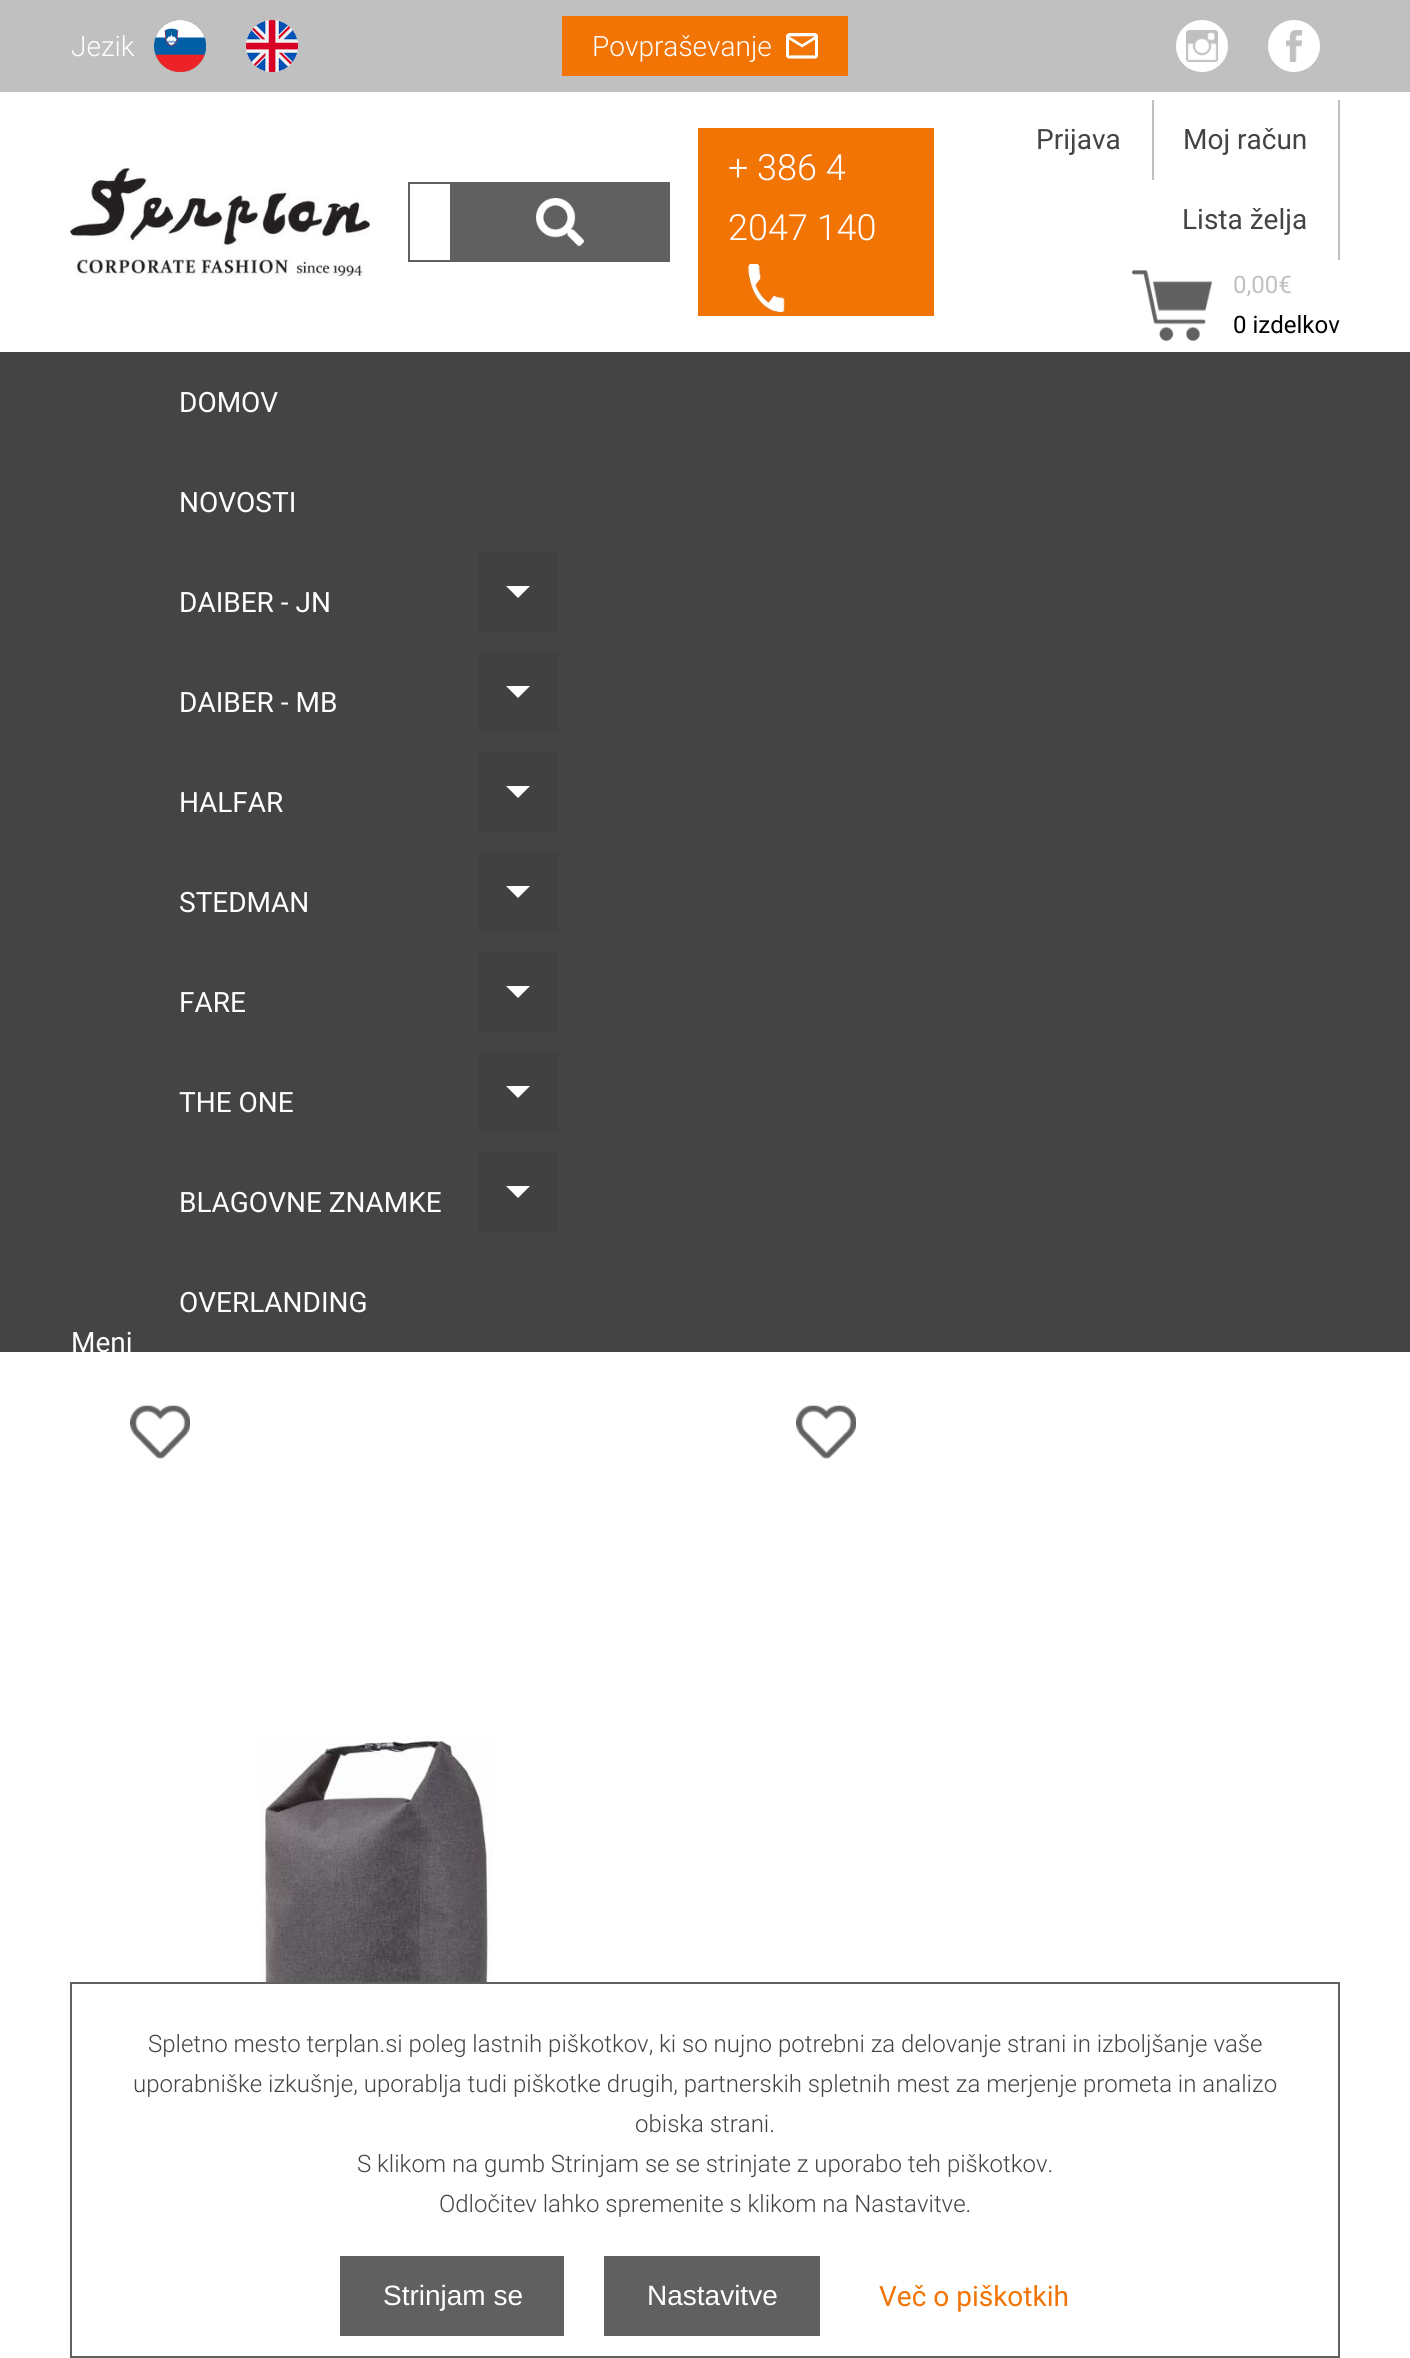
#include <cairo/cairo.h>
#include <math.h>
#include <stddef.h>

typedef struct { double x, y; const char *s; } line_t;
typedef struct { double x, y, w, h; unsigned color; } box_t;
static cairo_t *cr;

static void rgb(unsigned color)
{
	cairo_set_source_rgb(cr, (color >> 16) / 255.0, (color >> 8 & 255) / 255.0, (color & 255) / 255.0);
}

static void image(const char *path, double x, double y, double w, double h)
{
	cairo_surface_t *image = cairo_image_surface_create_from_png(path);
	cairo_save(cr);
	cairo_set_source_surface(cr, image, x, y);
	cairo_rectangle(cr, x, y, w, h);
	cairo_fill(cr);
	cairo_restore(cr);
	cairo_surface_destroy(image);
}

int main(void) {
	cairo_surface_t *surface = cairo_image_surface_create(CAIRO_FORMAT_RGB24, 1410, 2358);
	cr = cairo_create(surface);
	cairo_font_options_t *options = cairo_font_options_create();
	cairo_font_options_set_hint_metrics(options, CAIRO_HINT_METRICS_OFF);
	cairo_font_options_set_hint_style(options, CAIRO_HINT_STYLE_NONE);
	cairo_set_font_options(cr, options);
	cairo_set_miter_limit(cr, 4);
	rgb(0xffffff);
	cairo_paint(cr);
	rgb(0xc0c0c0);
	cairo_rectangle(cr, 0, 0, 1410, 92);
	cairo_fill(cr);
	image("img/1.png", 154, 20, 52, 52);
	image("img/2.png", 246, 20, 52, 52);
	rgb(0xf27405);
	cairo_rectangle(cr, 562, 16, 286, 60);
	cairo_fill(cr);
	image("img/3.png", 786, 33, 32, 26);
	rgb(0xffffff);
	cairo_arc(cr, 1202, 46, 36, 0, 2 * M_PI);
	cairo_fill_preserve(cr);
	rgb(0xc0c0c0);
	cairo_set_line_width(cr, 20);
	cairo_stroke(cr);
	image("img/4.png", 1186, 30, 32, 32);
	rgb(0xffffff);
	cairo_arc(cr, 1294, 46, 36, 0, 2 * M_PI);
	cairo_fill_preserve(cr);
	rgb(0xc0c0c0);
	cairo_stroke(cr);
	image("img/5.png", 1286, 30, 16, 32);
	image("img/6.png", 70, 167, 300, 112);
	{
		static const box_t items[] = {
			{408, 182, 42, 2, 0x606060},
			{408, 260, 42, 2, 0x606060},
			{408, 182, 2, 80, 0x606060},
			{450, 182, 220, 80, 0x606060},
		};
		for (size_t i = 0; i < sizeof items / sizeof *items; i++) {
			rgb(items[i].color);
			cairo_rectangle(cr, items[i].x, items[i].y, items[i].w, items[i].h);
			cairo_fill(cr);
		}
	}
	image("img/7.png", 536, 198, 48, 48);
	rgb(0xf27405);
	cairo_rectangle(cr, 698, 128, 236, 188);
	cairo_fill(cr);
	image("img/8.png", 748, 264, 37, 48);
	rgb(0xc0c0c0);
	cairo_rectangle(cr, 1152, 100, 2, 80);
	cairo_fill(cr);
	cairo_rectangle(cr, 1338, 100, 2, 160);
	cairo_fill(cr);
	image("img/9.png", 1132, 270, 80, 71);
	rgb(0x444444);
	cairo_rectangle(cr, 0, 352, 1410, 1000);
	cairo_fill(cr);
	rgb(0x414141);
	cairo_rectangle(cr, 478, 552, 80, 80);
	cairo_fill(cr);
	rgb(0xffffff);
	cairo_new_path(cr);
	cairo_move_to(cr, 506, 586);
	cairo_line_to(cr, 530, 586);
	cairo_line_to(cr, 518, 598);
	cairo_close_path(cr);
	cairo_fill(cr);
	rgb(0x414141);
	cairo_rectangle(cr, 478, 652, 80, 80);
	cairo_fill(cr);
	rgb(0xffffff);
	cairo_new_path(cr);
	cairo_move_to(cr, 506, 686);
	cairo_line_to(cr, 530, 686);
	cairo_line_to(cr, 518, 698);
	cairo_close_path(cr);
	cairo_fill(cr);
	rgb(0x414141);
	cairo_rectangle(cr, 478, 752, 80, 80);
	cairo_fill(cr);
	rgb(0xffffff);
	cairo_new_path(cr);
	cairo_move_to(cr, 506, 786);
	cairo_line_to(cr, 530, 786);
	cairo_line_to(cr, 518, 798);
	cairo_close_path(cr);
	cairo_fill(cr);
	rgb(0x414141);
	cairo_rectangle(cr, 478, 852, 80, 80);
	cairo_fill(cr);
	rgb(0xffffff);
	cairo_new_path(cr);
	cairo_move_to(cr, 506, 886);
	cairo_line_to(cr, 530, 886);
	cairo_line_to(cr, 518, 898);
	cairo_close_path(cr);
	cairo_fill(cr);
	rgb(0x414141);
	cairo_rectangle(cr, 478, 952, 80, 80);
	cairo_fill(cr);
	rgb(0xffffff);
	cairo_new_path(cr);
	cairo_move_to(cr, 506, 986);
	cairo_line_to(cr, 530, 986);
	cairo_line_to(cr, 518, 998);
	cairo_close_path(cr);
	cairo_fill(cr);
	rgb(0x414141);
	cairo_rectangle(cr, 478, 1052, 80, 80);
	cairo_fill(cr);
	rgb(0xffffff);
	cairo_new_path(cr);
	cairo_move_to(cr, 506, 1086);
	cairo_line_to(cr, 530, 1086);
	cairo_line_to(cr, 518, 1098);
	cairo_close_path(cr);
	cairo_fill(cr);
	rgb(0x414141);
	cairo_rectangle(cr, 478, 1152, 80, 80);
	cairo_fill(cr);
	rgb(0xffffff);
	cairo_new_path(cr);
	cairo_move_to(cr, 506, 1186);
	cairo_line_to(cr, 530, 1186);
	cairo_line_to(cr, 518, 1198);
	cairo_close_path(cr);
	cairo_fill(cr);
	image("img/10.png", 130, 1405, 60, 54);
	image("img/11.png", 796, 1405, 60, 54);
	image("img/12.png", 260, 1735, 233, 247);
	cairo_rectangle(cr, 71, 1983, 1268, 374);
	rgb(0x606060);
	cairo_set_line_width(cr, 2);
	cairo_stroke(cr);
	cairo_rectangle(cr, 340, 2256, 224, 80);
	cairo_fill(cr);
	cairo_rectangle(cr, 604, 2256, 216, 80);
	cairo_fill(cr);
	cairo_select_font_face(cr, "Roboto Light", CAIRO_FONT_SLANT_NORMAL, CAIRO_FONT_WEIGHT_NORMAL);
	cairo_set_font_size(cr, 28);
	rgb(0xffffff);
	cairo_move_to(cr, 71, 56);
	cairo_show_text(cr, "Jezik");
	cairo_move_to(cr, 592, 56);
	cairo_show_text(cr, "Povpraševanje");
	cairo_set_font_size(cr, 36);
	cairo_move_to(cr, 728, 180);
	cairo_show_text(cr, "+ 386 4");
	cairo_move_to(cr, 728, 240);
	cairo_show_text(cr, "2047 140");
	cairo_select_font_face(cr, "Roboto", CAIRO_FONT_SLANT_NORMAL, CAIRO_FONT_WEIGHT_NORMAL);
	cairo_set_font_size(cr, 28);
	rgb(0x444444);
	{
		static const line_t items[] = {
			{1036, 149, "Prijava"},
			{1183, 149, "Moj račun"},
			{1182, 229, "Lista želja"},
		};
		for (size_t i = 0; i < sizeof items / sizeof *items; i++) {
			cairo_move_to(cr, items[i].x, items[i].y);
			cairo_show_text(cr, items[i].s);
		}
	}
	cairo_set_font_size(cr, 24);
	rgb(0xc0c0c0);
	cairo_move_to(cr, 1233, 293);
	cairo_show_text(cr, "0,00€");
	rgb(0x000000);
	cairo_move_to(cr, 1233, 333);
	cairo_show_text(cr, "0 izdelkov");
	cairo_set_font_size(cr, 28);
	rgb(0xffffff);
	{
		static const line_t items[] = {
			{179, 412, "DOMOV"},
			{179, 512, "NOVOSTI"},
			{179, 612, "DAIBER - JN"},
			{179, 712, "DAIBER - MB"},
			{179, 812, "HALFAR"},
			{179, 912, "STEDMAN"},
			{179, 1012, "FARE"},
			{179, 1112, "THE ONE"},
			{179, 1212, "BLAGOVNE ZNAMKE"},
			{179, 1312, "OVERLANDING"},
			{71, 1352, "Meni"},
		};
		for (size_t i = 0; i < sizeof items / sizeof *items; i++) {
			cairo_move_to(cr, items[i].x, items[i].y);
			cairo_show_text(cr, items[i].s);
		}
	}
	cairo_select_font_face(cr, "Roboto Light", CAIRO_FONT_SLANT_NORMAL, CAIRO_FONT_WEIGHT_NORMAL);
	cairo_set_font_size(cr, 24);
	rgb(0x444444);
	{
		static const line_t items[] = {
			{148, 2052, "Spletno mesto terplan.si poleg lastnih piškotkov, ki so nujno potrebni za delovanje strani in izboljšanje vaše"},
			{133, 2092, "uporabniške izkušnje, uporablja tudi piškotke drugih, partnerskih spletnih mest za merjenje prometa in analizo"},
			{635, 2132, "obiska strani."},
			{357, 2172, "S klikom na gumb Strinjam se se strinjate z uporabo teh piškotkov."},
			{439, 2212, "Odločitev lahko spremenite s klikom na Nastavitve."},
		};
		for (size_t i = 0; i < sizeof items / sizeof *items; i++) {
			cairo_move_to(cr, items[i].x, items[i].y);
			cairo_show_text(cr, items[i].s);
		}
	}
	cairo_select_font_face(cr, "Liberation Sans", CAIRO_FONT_SLANT_NORMAL, CAIRO_FONT_WEIGHT_NORMAL);
	cairo_set_font_size(cr, 28);
	rgb(0xffffff);
	cairo_move_to(cr, 383, 2305);
	cairo_show_text(cr, "Strinjam se");
	cairo_move_to(cr, 647, 2305);
	cairo_show_text(cr, "Nastavitve");
	cairo_select_font_face(cr, "Roboto", CAIRO_FONT_SLANT_NORMAL, CAIRO_FONT_WEIGHT_NORMAL);
	rgb(0xf27405);
	cairo_move_to(cr, 879, 2306);
	cairo_show_text(cr, "Več o piškotkih");
	cairo_surface_write_to_png(surface, "page.png");
	cairo_font_options_destroy(options);
	cairo_destroy(cr);
	cairo_surface_destroy(surface);
	return 0;
}
